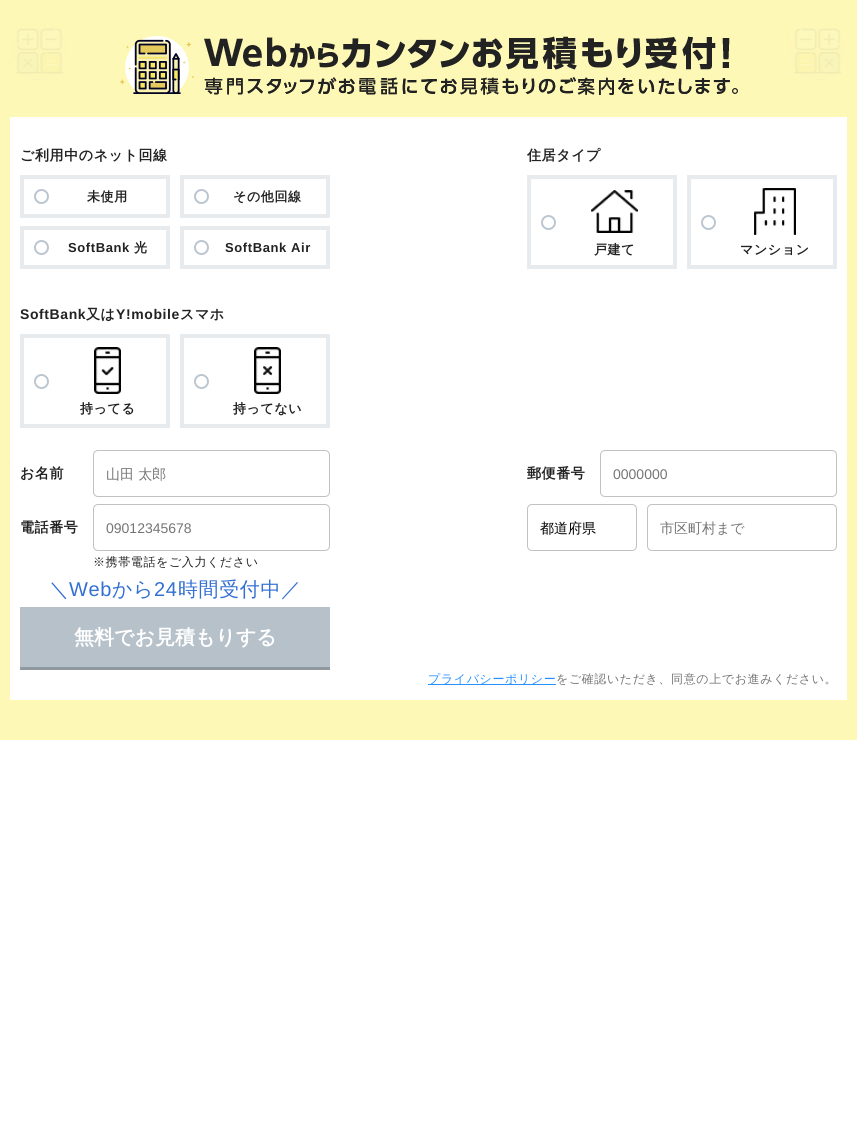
#include <cairo/cairo.h>
#include <math.h>
#include <stddef.h>

typedef struct { double x, y, w, h; unsigned color; } box_t;
static cairo_t *cr;

static void rgb(unsigned color)
{
	cairo_set_source_rgb(cr, (color >> 16) / 255.0, (color >> 8 & 255) / 255.0, (color & 255) / 255.0);
}

static void tracked(double x, double y, const char *s, double letter, double word)
{
	cairo_move_to(cr, x, y);
	while (*s) {
		char ch[5] = {0};
		int n = 0;
		do ch[n++] = *s++; while ((*s & 0xC0) == 0x80);
		cairo_show_text(cr, ch);
		cairo_rel_move_to(cr, letter + word * (*ch == ' '), 0);
	}
}

static void rrect(double x, double y, double w, double h, double r)
{
	cairo_new_sub_path(cr);
	cairo_arc(cr, x + w - r, y + h - r, r, 0, M_PI / 2);
	cairo_arc(cr, x + r, y + h - r, r, M_PI / 2, M_PI);
	cairo_arc(cr, x + r, y + r, r, M_PI, 1.5 * M_PI);
	cairo_arc(cr, x + w - r, y + r, r, 1.5 * M_PI, 2 * M_PI);
	cairo_close_path(cr);
}

static void image(const char *path, double x, double y, double w, double h)
{
	cairo_surface_t *image = cairo_image_surface_create_from_png(path);
	cairo_save(cr);
	cairo_set_source_surface(cr, image, x, y);
	cairo_rectangle(cr, x, y, w, h);
	cairo_fill(cr);
	cairo_restore(cr);
	cairo_surface_destroy(image);
}

int main(void) {
	cairo_surface_t *surface = cairo_image_surface_create(CAIRO_FORMAT_RGB24, 857, 1148);
	cr = cairo_create(surface);
	cairo_font_options_t *options = cairo_font_options_create();
	cairo_font_options_set_hint_metrics(options, CAIRO_HINT_METRICS_OFF);
	cairo_font_options_set_hint_style(options, CAIRO_HINT_STYLE_NONE);
	cairo_set_font_options(cr, options);
	cairo_set_miter_limit(cr, 4);
	rgb(0xffffff);
	cairo_paint(cr);
	rgb(0xfdf8b6);
	cairo_rectangle(cr, 0, 0, 857, 740);
	cairo_fill(cr);
	image("img/1.png", 8, 28, 841, 436);
	image("img/2.png", 120, 36, 618, 59);
	rgb(0xffffff);
	cairo_rectangle(cr, 10, 117, 837, 583);
	cairo_fill(cr);
	cairo_rectangle(cr, 22, 177, 146, 39);
	rgb(0xe7ebed);
	cairo_set_line_width(cr, 4);
	cairo_stroke(cr);
	cairo_arc(cr, 41.5, 196.5, 6.5, 0, 2 * M_PI);
	rgb(0xbcc6d0);
	cairo_set_line_width(cr, 2);
	cairo_stroke(cr);
	cairo_rectangle(cr, 182, 177, 146, 39);
	rgb(0xe7ebed);
	cairo_set_line_width(cr, 4);
	cairo_stroke(cr);
	cairo_arc(cr, 201.5, 196.5, 6.5, 0, 2 * M_PI);
	rgb(0xbcc6d0);
	cairo_set_line_width(cr, 2);
	cairo_stroke(cr);
	cairo_rectangle(cr, 22, 228, 146, 39);
	rgb(0xe7ebed);
	cairo_set_line_width(cr, 4);
	cairo_stroke(cr);
	cairo_arc(cr, 41.5, 247.5, 6.5, 0, 2 * M_PI);
	rgb(0xbcc6d0);
	cairo_set_line_width(cr, 2);
	cairo_stroke(cr);
	cairo_rectangle(cr, 182, 228, 146, 39);
	rgb(0xe7ebed);
	cairo_set_line_width(cr, 4);
	cairo_stroke(cr);
	cairo_arc(cr, 201.5, 247.5, 6.5, 0, 2 * M_PI);
	rgb(0xbcc6d0);
	cairo_set_line_width(cr, 2);
	cairo_stroke(cr);
	cairo_rectangle(cr, 529, 177, 146, 90);
	rgb(0xe7ebed);
	cairo_set_line_width(cr, 4);
	cairo_stroke(cr);
	cairo_arc(cr, 548.5, 222.5, 6.5, 0, 2 * M_PI);
	rgb(0xbcc6d0);
	cairo_set_line_width(cr, 2);
	cairo_stroke(cr);
	image("img/3.png", 591, 190, 47, 43);
	cairo_rectangle(cr, 689, 177, 146, 90);
	rgb(0xe7ebed);
	cairo_set_line_width(cr, 4);
	cairo_stroke(cr);
	cairo_arc(cr, 708.5, 222.5, 6.5, 0, 2 * M_PI);
	rgb(0xbcc6d0);
	cairo_set_line_width(cr, 2);
	cairo_stroke(cr);
	image("img/4.png", 754, 188, 42, 47);
	cairo_rectangle(cr, 22, 336, 146, 90);
	rgb(0xe7ebed);
	cairo_set_line_width(cr, 4);
	cairo_stroke(cr);
	cairo_arc(cr, 41.5, 381.5, 6.5, 0, 2 * M_PI);
	rgb(0xbcc6d0);
	cairo_set_line_width(cr, 2);
	cairo_stroke(cr);
	image("img/5.png", 94, 347, 27, 47);
	cairo_rectangle(cr, 182, 336, 146, 90);
	rgb(0xe7ebed);
	cairo_set_line_width(cr, 4);
	cairo_stroke(cr);
	cairo_arc(cr, 201.5, 381.5, 6.5, 0, 2 * M_PI);
	rgb(0xbcc6d0);
	cairo_set_line_width(cr, 2);
	cairo_stroke(cr);
	image("img/6.png", 254, 347, 27, 47);
	rrect(93.5, 450.5, 236, 46, 4.5);
	rgb(0xc1c1c1);
	cairo_set_line_width(cr, 1);
	cairo_stroke(cr);
	rrect(93.5, 504.5, 236, 46, 4.5);
	cairo_stroke(cr);
	rrect(600.5, 450.5, 236, 46, 4.5);
	cairo_stroke(cr);
	rrect(527.5, 504.5, 109, 46, 4.5);
	cairo_stroke(cr);
	rrect(647.5, 504.5, 189, 46, 4.5);
	cairo_stroke(cr);
	{
		static const box_t items[] = {
			{20, 667, 310, 3, 0x9099a0},
			{20, 607, 310, 60, 0xb6c1ca},
			{428, 684, 128, 1, 0x2791fe},
		};
		for (size_t i = 0; i < sizeof items / sizeof *items; i++) {
			rgb(items[i].color);
			cairo_rectangle(cr, items[i].x, items[i].y, items[i].w, items[i].h);
			cairo_fill(cr);
		}
	}
	cairo_select_font_face(cr, "WenQuanYi Zen Hei", CAIRO_FONT_SLANT_NORMAL, CAIRO_FONT_WEIGHT_BOLD);
	cairo_set_font_size(cr, 14);
	rgb(0x222222);
	tracked(20, 160, "ご利用中のネット回線", 0.6, 0);
	cairo_set_font_size(cr, 13);
	tracked(87, 201, "未使用", 0.6, 0);
	tracked(233, 201, "その他回線", 0.6, 0);
	cairo_select_font_face(cr, "Liberation Sans", CAIRO_FONT_SLANT_NORMAL, CAIRO_FONT_WEIGHT_BOLD);
	tracked(68, 252, "SoftBank", 0.6, 0);
	cairo_select_font_face(cr, "WenQuanYi Zen Hei", CAIRO_FONT_SLANT_NORMAL, CAIRO_FONT_WEIGHT_BOLD);
	tracked(134, 252, "光", 0.6, 0);
	cairo_select_font_face(cr, "Liberation Sans", CAIRO_FONT_SLANT_NORMAL, CAIRO_FONT_WEIGHT_BOLD);
	tracked(225, 252, "SoftBank Air", 0.6, 0);
	cairo_select_font_face(cr, "WenQuanYi Zen Hei", CAIRO_FONT_SLANT_NORMAL, CAIRO_FONT_WEIGHT_BOLD);
	cairo_set_font_size(cr, 14);
	tracked(527, 160, "住居タイプ", 0.6, 0);
	cairo_set_font_size(cr, 13);
	tracked(594, 254, "戸建て", 0.6, 0);
	tracked(740, 254, "マンション", 0.6, 0);
	cairo_select_font_face(cr, "Liberation Sans", CAIRO_FONT_SLANT_NORMAL, CAIRO_FONT_WEIGHT_BOLD);
	cairo_set_font_size(cr, 14);
	tracked(20, 319, "SoftBank", 0.6, 0);
	cairo_select_font_face(cr, "WenQuanYi Zen Hei", CAIRO_FONT_SLANT_NORMAL, CAIRO_FONT_WEIGHT_BOLD);
	tracked(86, 319, "又は", 0.6, 0);
	cairo_select_font_face(cr, "Liberation Sans", CAIRO_FONT_SLANT_NORMAL, CAIRO_FONT_WEIGHT_BOLD);
	tracked(116, 319, "Y!mobile", 0.6, 0);
	cairo_select_font_face(cr, "WenQuanYi Zen Hei", CAIRO_FONT_SLANT_NORMAL, CAIRO_FONT_WEIGHT_BOLD);
	tracked(180, 319, "スマホ", 0.6, 0);
	cairo_set_font_size(cr, 13);
	tracked(80, 413, "持ってる", 0.6, 0);
	tracked(233, 413, "持ってない", 0.6, 0);
	cairo_set_font_size(cr, 14);
	tracked(20, 478, "お名前", 0.6, 0);
	cairo_select_font_face(cr, "WenQuanYi Zen Hei Medium", CAIRO_FONT_SLANT_NORMAL, CAIRO_FONT_WEIGHT_NORMAL);
	rgb(0x757575);
	cairo_move_to(cr, 106, 479);
	cairo_show_text(cr, "山田 太郎");
	cairo_select_font_face(cr, "WenQuanYi Zen Hei", CAIRO_FONT_SLANT_NORMAL, CAIRO_FONT_WEIGHT_BOLD);
	rgb(0x222222);
	tracked(20, 532, "電話番号", 0.6, 0);
	cairo_select_font_face(cr, "Liberation Sans", CAIRO_FONT_SLANT_NORMAL, CAIRO_FONT_WEIGHT_NORMAL);
	rgb(0x757575);
	cairo_move_to(cr, 106, 533);
	cairo_show_text(cr, "09012345678");
	cairo_select_font_face(cr, "WenQuanYi Zen Hei Medium", CAIRO_FONT_SLANT_NORMAL, CAIRO_FONT_WEIGHT_NORMAL);
	cairo_set_font_size(cr, 12);
	rgb(0x222222);
	tracked(93, 566, "※携帯電話をご入力ください", 0.6, 0);
	cairo_select_font_face(cr, "WenQuanYi Zen Hei", CAIRO_FONT_SLANT_NORMAL, CAIRO_FONT_WEIGHT_BOLD);
	cairo_set_font_size(cr, 14);
	tracked(527, 478, "郵便番号", 0.6, 0);
	cairo_select_font_face(cr, "Liberation Sans", CAIRO_FONT_SLANT_NORMAL, CAIRO_FONT_WEIGHT_NORMAL);
	rgb(0x757575);
	cairo_move_to(cr, 613, 479);
	cairo_show_text(cr, "0000000");
	cairo_select_font_face(cr, "WenQuanYi Zen Hei Medium", CAIRO_FONT_SLANT_NORMAL, CAIRO_FONT_WEIGHT_NORMAL);
	rgb(0x000000);
	cairo_move_to(cr, 540, 533);
	cairo_show_text(cr, "都道府県");
	rgb(0x757575);
	cairo_move_to(cr, 660, 533);
	cairo_show_text(cr, "市区町村まで");
	cairo_set_font_size(cr, 20);
	rgb(0x3370d2);
	tracked(49, 596, "＼", 0.6, 0);
	cairo_select_font_face(cr, "Liberation Sans", CAIRO_FONT_SLANT_NORMAL, CAIRO_FONT_WEIGHT_NORMAL);
	tracked(69, 596, "Web", 0.6, 0);
	cairo_select_font_face(cr, "WenQuanYi Zen Hei Medium", CAIRO_FONT_SLANT_NORMAL, CAIRO_FONT_WEIGHT_NORMAL);
	tracked(112, 596, "から", 0.6, 0);
	cairo_select_font_face(cr, "Liberation Sans", CAIRO_FONT_SLANT_NORMAL, CAIRO_FONT_WEIGHT_NORMAL);
	tracked(154, 596, "24", 0.6, 0);
	cairo_select_font_face(cr, "WenQuanYi Zen Hei Medium", CAIRO_FONT_SLANT_NORMAL, CAIRO_FONT_WEIGHT_NORMAL);
	tracked(178, 596, "時間受付中／", 0.6, 0);
	cairo_select_font_face(cr, "WenQuanYi Zen Hei", CAIRO_FONT_SLANT_NORMAL, CAIRO_FONT_WEIGHT_BOLD);
	rgb(0xffffff);
	cairo_move_to(cr, 74, 644);
	cairo_show_text(cr, "無料でお見積もりする");
	cairo_select_font_face(cr, "WenQuanYi Zen Hei Medium", CAIRO_FONT_SLANT_NORMAL, CAIRO_FONT_WEIGHT_NORMAL);
	cairo_set_font_size(cr, 12);
	rgb(0x2791fe);
	tracked(428, 683, "プライバシーポリシー", 0.6, 0);
	rgb(0x757575);
	tracked(556, 683, "をご確認いただき、同意の上でお進みください。", 0.6, 0);
	cairo_surface_write_to_png(surface, "page.png");
	cairo_font_options_destroy(options);
	cairo_destroy(cr);
	cairo_surface_destroy(surface);
	return 0;
}
